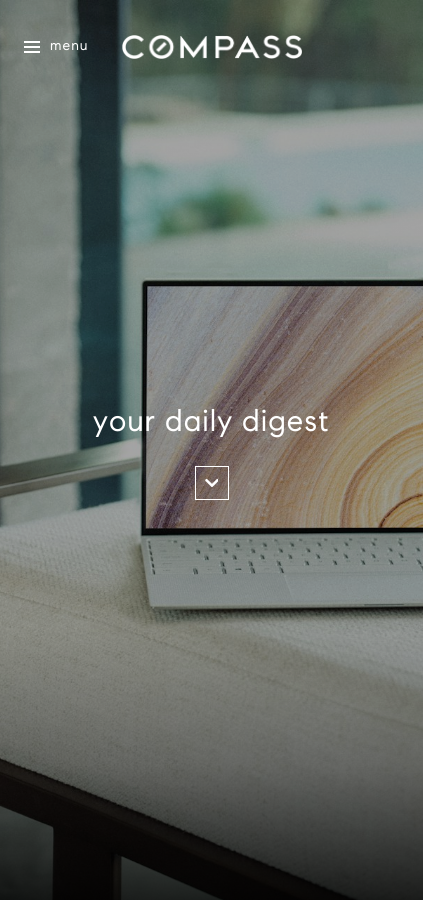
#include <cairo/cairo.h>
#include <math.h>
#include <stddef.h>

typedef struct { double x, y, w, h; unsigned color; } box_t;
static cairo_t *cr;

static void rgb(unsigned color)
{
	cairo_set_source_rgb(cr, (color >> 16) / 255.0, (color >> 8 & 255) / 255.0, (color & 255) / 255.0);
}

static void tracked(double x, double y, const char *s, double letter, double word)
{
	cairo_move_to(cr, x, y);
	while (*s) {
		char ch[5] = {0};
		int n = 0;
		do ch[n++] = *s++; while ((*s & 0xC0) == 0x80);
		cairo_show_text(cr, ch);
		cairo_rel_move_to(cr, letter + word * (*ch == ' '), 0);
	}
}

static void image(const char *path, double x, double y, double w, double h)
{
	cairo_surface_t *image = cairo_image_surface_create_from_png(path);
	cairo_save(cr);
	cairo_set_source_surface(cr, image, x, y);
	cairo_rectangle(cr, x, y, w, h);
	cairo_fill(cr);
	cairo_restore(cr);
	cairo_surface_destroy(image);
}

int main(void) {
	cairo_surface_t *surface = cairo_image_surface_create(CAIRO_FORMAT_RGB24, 423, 900);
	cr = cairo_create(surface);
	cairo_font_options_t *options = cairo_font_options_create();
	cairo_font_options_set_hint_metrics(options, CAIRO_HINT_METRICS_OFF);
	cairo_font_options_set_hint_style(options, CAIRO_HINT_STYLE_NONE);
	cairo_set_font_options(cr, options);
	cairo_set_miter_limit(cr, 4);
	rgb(0xffffff);
	cairo_paint(cr);
	image("img/2.png", 0, 0, 423, 900);
	{
		static const box_t items[] = {
			{24, 46, 16, 2, 0xffffff},
			{24, 41, 16, 2, 0xffffff},
			{24, 51, 16, 2, 0xffffff},
		};
		for (size_t i = 0; i < sizeof items / sizeof *items; i++) {
			rgb(items[i].color);
			cairo_rectangle(cr, items[i].x, items[i].y, items[i].w, items[i].h);
			cairo_fill(cr);
		}
	}
	image("img/1.png", 122, 35, 180, 24);
	cairo_rectangle(cr, 195.5, 466.5, 33, 33);
	cairo_set_line_width(cr, 1);
	cairo_stroke(cr);
	image("img/3.png", 205, 478, 13, 9);
	cairo_select_font_face(cr, "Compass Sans", CAIRO_FONT_SLANT_NORMAL, CAIRO_FONT_WEIGHT_NORMAL);
	cairo_set_font_size(cr, 14);
	tracked(50, 50, "menu", 1, 0);
	cairo_set_font_size(cr, 30);
	tracked(93, 431, "your daily digest", 1, -1);
	cairo_surface_write_to_png(surface, "page.png");
	cairo_font_options_destroy(options);
	cairo_destroy(cr);
	cairo_surface_destroy(surface);
	return 0;
}
